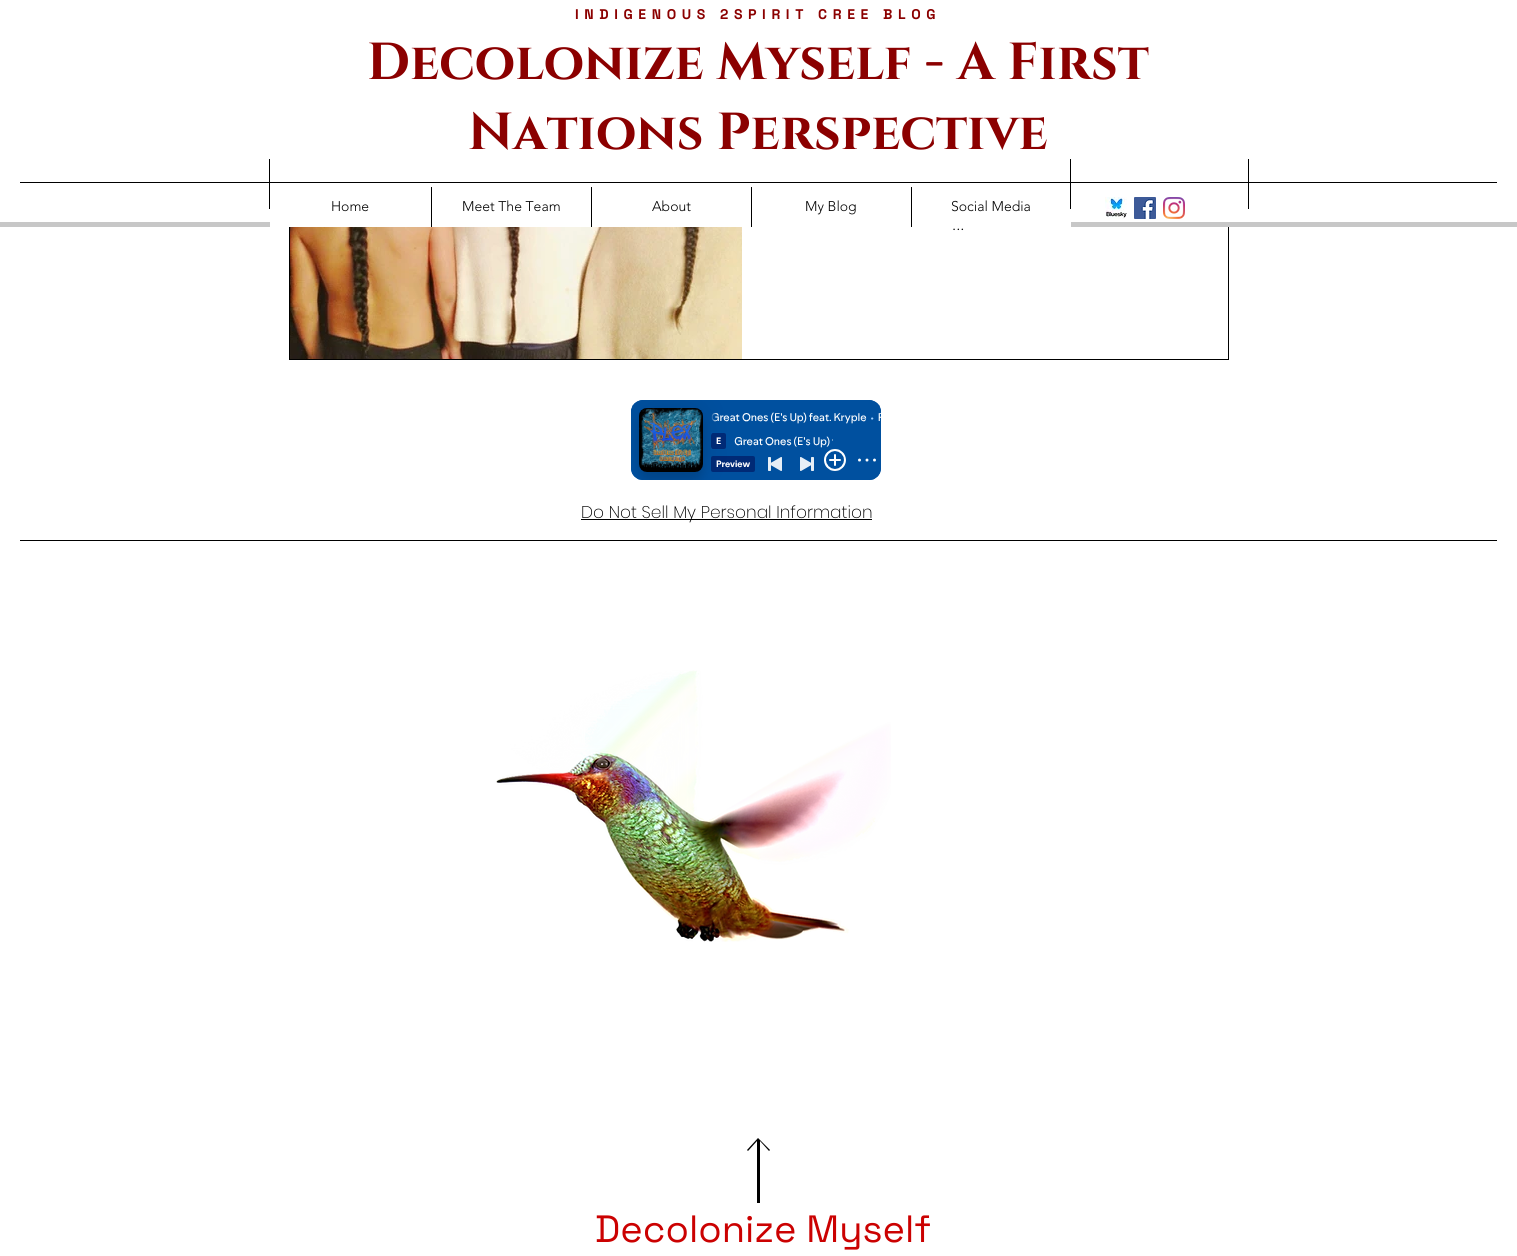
#include <cairo/cairo.h>
#include <math.h>
#include <stddef.h>

typedef struct { double x, y; const char *s; } line_t;
typedef struct { double x, y, w, h; unsigned color; } box_t;
static cairo_t *cr;

static void rgb(unsigned color)
{
	cairo_set_source_rgb(cr, (color >> 16) / 255.0, (color >> 8 & 255) / 255.0, (color & 255) / 255.0);
}

static void tracked(double x, double y, const char *s, double letter, double word)
{
	cairo_move_to(cr, x, y);
	while (*s) {
		char ch[5] = {0};
		int n = 0;
		do ch[n++] = *s++; while ((*s & 0xC0) == 0x80);
		cairo_show_text(cr, ch);
		cairo_rel_move_to(cr, letter + word * (*ch == ' '), 0);
	}
}

static void image(const char *path, double x, double y, double w, double h)
{
	cairo_surface_t *image = cairo_image_surface_create_from_png(path);
	cairo_save(cr);
	cairo_set_source_surface(cr, image, x, y);
	cairo_rectangle(cr, x, y, w, h);
	cairo_fill(cr);
	cairo_restore(cr);
	cairo_surface_destroy(image);
}

int main(void) {
	cairo_surface_t *surface = cairo_image_surface_create(CAIRO_FORMAT_RGB24, 1517, 1256);
	cr = cairo_create(surface);
	cairo_font_options_t *options = cairo_font_options_create();
	cairo_font_options_set_hint_metrics(options, CAIRO_HINT_METRICS_OFF);
	cairo_font_options_set_hint_style(options, CAIRO_HINT_STYLE_NONE);
	cairo_set_font_options(cr, options);
	cairo_set_miter_limit(cr, 4);
	rgb(0xffffff);
	cairo_paint(cr);
	rgb(0x000000);
	cairo_rectangle(cr, 269, 159, 1, 50);
	cairo_fill(cr);
	cairo_rectangle(cr, 289.5, 19.5, 939, 340);
	cairo_set_line_width(cr, 1);
	cairo_stroke(cr);
	{
		static const box_t items[] = {
			{289, 19, 940, 203, 0xffffff},
			{20, 182, 1477, 1, 0x000000},
			{1070, 159, 1, 50, 0x000000},
			{1248, 159, 1, 50, 0x000000},
			{0, 222, 1517, 5, 0xc7c7c7},
			{270, 222, 801, 5, 0xffffff},
			{431, 187, 1, 40, 0x000000},
			{591, 187, 1, 40, 0x000000},
			{751, 187, 1, 40, 0x000000},
			{911, 187, 1, 40, 0x000000},
		};
		for (size_t i = 0; i < sizeof items / sizeof *items; i++) {
			rgb(items[i].color);
			cairo_rectangle(cr, items[i].x, items[i].y, items[i].w, items[i].h);
			cairo_fill(cr);
		}
	}
	image("img/1.png", 1105, 197, 22, 22);
	image("img/2.png", 1134, 197, 22, 22);
	image("img/3.png", 1163, 197, 22, 22);
	image("img/4.png", 290, 227, 452, 132);
	image("img/5.png", 631, 400, 250, 80);
	cairo_rectangle(cr, 581, 519, 291, 1);
	cairo_fill(cr);
	cairo_rectangle(cr, 20, 540, 1477, 1);
	cairo_fill(cr);
	image("img/6.png", 496, 670, 395, 272);
	cairo_new_path(cr);
	cairo_move_to(cr, 770, 1150);
	cairo_line_to(cr, 758, 1138);
	cairo_line_to(cr, 747, 1150);
	cairo_line_to(cr, 748, 1151);
	cairo_line_to(cr, 757, 1141);
	cairo_line_to(cr, 757, 1203);
	cairo_line_to(cr, 760, 1203);
	cairo_line_to(cr, 760, 1141);
	cairo_line_to(cr, 769, 1151);
	cairo_close_path(cr);
	cairo_fill(cr);
	cairo_select_font_face(cr, "Space Grotesk", CAIRO_FONT_SLANT_NORMAL, CAIRO_FONT_WEIGHT_BOLD);
	cairo_set_font_size(cr, 14);
	rgb(0x8b0000);
	tracked(575, 19, "INDIGENOUS 2SPIRIT CREE BLOG", 5.6, 0);
	cairo_select_font_face(cr, "Cinzel", CAIRO_FONT_SLANT_NORMAL, CAIRO_FONT_WEIGHT_BOLD);
	cairo_set_font_size(cr, 52);
	cairo_move_to(cr, 367, 79);
	cairo_show_text(cr, "Decolonize Myself - A First");
	cairo_move_to(cr, 468, 149);
	cairo_show_text(cr, "Nations Perspective");
	cairo_select_font_face(cr, "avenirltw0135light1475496 Light", CAIRO_FONT_SLANT_NORMAL, CAIRO_FONT_WEIGHT_NORMAL);
	cairo_set_font_size(cr, 14);
	rgb(0x000000);
	{
		static const line_t items[] = {
			{331, 211, "Home"},
			{462, 211, "Meet The Team"},
			{652, 211, "About"},
			{805, 211, "My Blog"},
			{951, 211, "Social Media"},
		};
		for (size_t i = 0; i < sizeof items / sizeof *items; i++) {
			cairo_move_to(cr, items[i].x, items[i].y);
			cairo_show_text(cr, items[i].s);
		}
	}
	cairo_set_font_size(cr, 16);
	cairo_move_to(cr, 952, 230);
	cairo_show_text(cr, "...");
	cairo_select_font_face(cr, "Poppins ExtraLight", CAIRO_FONT_SLANT_NORMAL, CAIRO_FONT_WEIGHT_NORMAL);
	cairo_set_font_size(cr, 17);
	cairo_move_to(cr, 581, 518);
	cairo_show_text(cr, "Do Not Sell My Personal Information");
	cairo_select_font_face(cr, "Space Grotesk", CAIRO_FONT_SLANT_NORMAL, CAIRO_FONT_WEIGHT_NORMAL);
	cairo_set_font_size(cr, 38);
	rgb(0xcb0101);
	cairo_move_to(cr, 595, 1242);
	cairo_show_text(cr, "Decolonize Myself");
	cairo_surface_write_to_png(surface, "page.png");
	cairo_font_options_destroy(options);
	cairo_destroy(cr);
	cairo_surface_destroy(surface);
	return 0;
}
